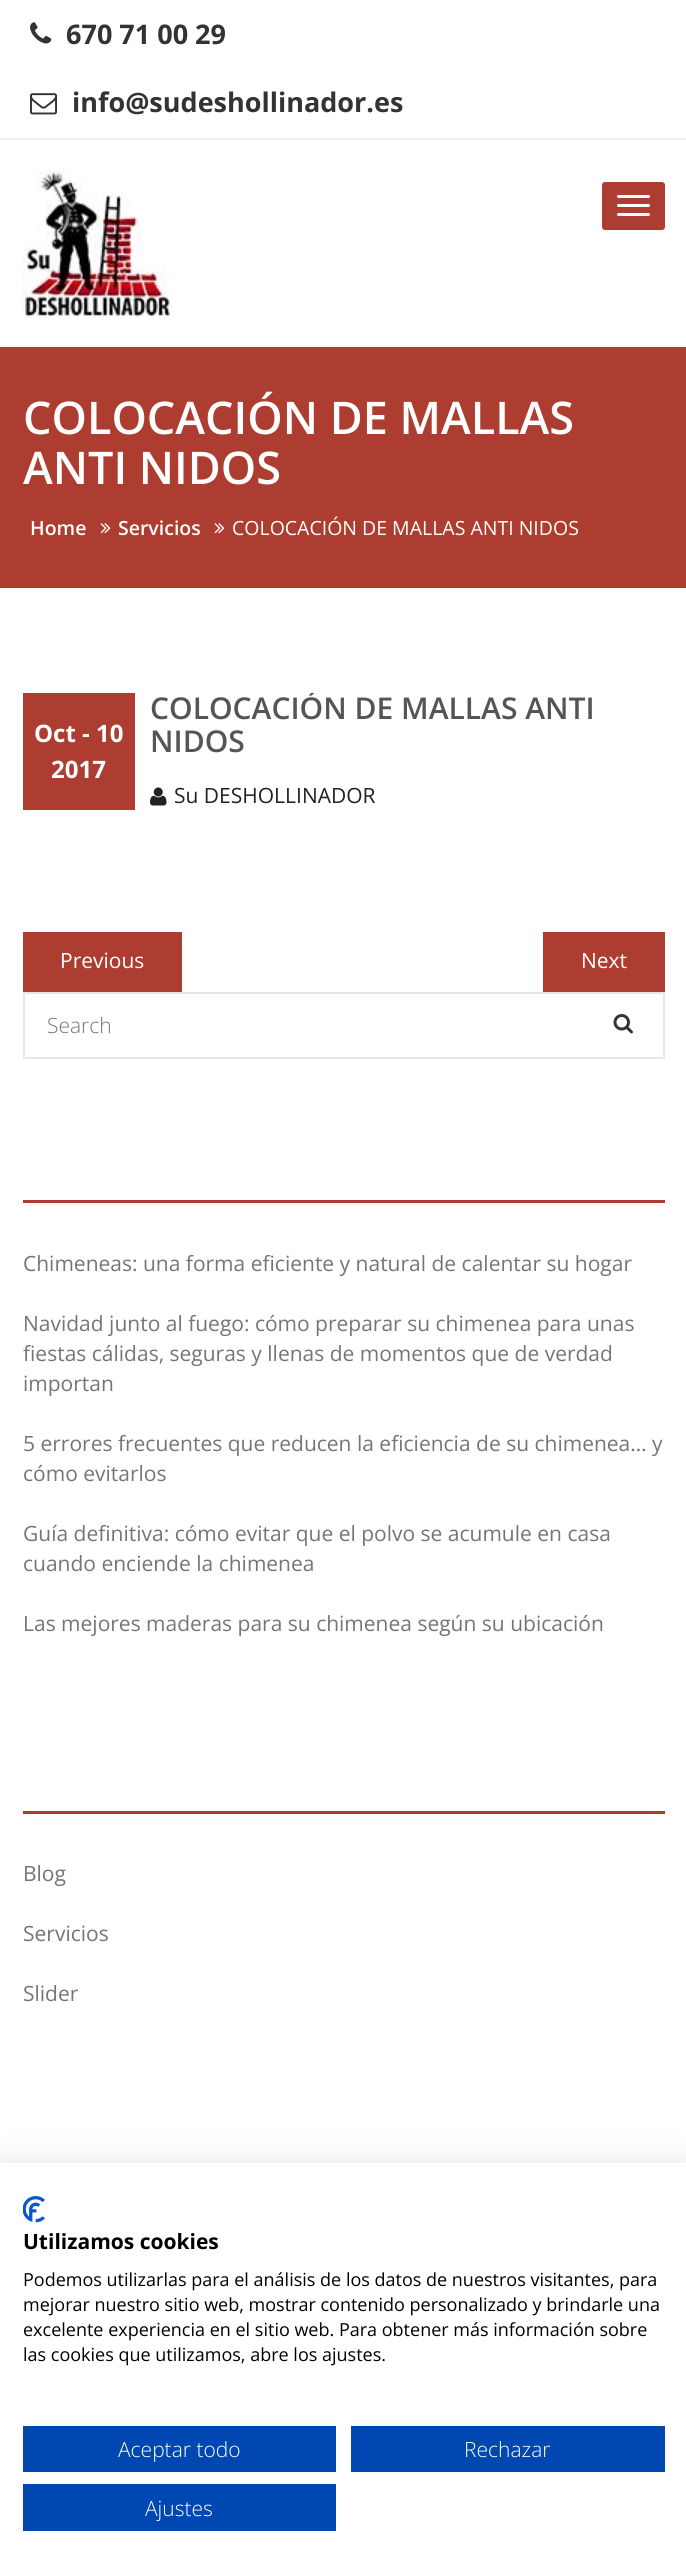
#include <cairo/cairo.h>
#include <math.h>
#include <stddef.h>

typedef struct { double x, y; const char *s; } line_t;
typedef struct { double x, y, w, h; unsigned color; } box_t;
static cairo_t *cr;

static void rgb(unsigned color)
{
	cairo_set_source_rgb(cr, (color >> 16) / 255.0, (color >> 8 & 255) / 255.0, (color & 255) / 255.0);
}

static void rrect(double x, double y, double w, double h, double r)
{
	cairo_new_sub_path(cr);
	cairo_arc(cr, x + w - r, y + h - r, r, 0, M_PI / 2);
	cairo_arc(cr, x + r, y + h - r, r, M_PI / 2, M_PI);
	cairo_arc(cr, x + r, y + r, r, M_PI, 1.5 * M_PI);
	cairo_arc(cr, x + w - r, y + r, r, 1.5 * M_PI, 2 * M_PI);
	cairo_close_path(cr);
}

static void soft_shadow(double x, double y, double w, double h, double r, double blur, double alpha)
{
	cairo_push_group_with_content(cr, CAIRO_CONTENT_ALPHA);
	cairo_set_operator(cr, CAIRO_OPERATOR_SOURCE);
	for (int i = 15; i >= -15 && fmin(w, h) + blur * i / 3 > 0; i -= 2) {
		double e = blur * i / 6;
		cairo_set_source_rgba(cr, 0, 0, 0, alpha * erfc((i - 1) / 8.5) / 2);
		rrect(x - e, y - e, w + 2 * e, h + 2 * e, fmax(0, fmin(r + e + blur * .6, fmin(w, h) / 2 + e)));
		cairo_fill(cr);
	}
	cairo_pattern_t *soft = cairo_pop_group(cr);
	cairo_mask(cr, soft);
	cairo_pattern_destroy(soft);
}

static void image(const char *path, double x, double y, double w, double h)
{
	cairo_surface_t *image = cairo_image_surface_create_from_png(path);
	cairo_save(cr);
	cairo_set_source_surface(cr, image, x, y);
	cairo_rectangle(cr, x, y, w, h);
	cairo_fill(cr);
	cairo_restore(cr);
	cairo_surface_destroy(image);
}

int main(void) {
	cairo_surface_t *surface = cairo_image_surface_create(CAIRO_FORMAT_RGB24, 686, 2570);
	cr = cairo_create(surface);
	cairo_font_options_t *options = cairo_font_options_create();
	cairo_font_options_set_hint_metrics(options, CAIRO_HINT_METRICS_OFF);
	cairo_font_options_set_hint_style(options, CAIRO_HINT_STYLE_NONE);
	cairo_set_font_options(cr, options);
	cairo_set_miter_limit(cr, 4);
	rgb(0xffffff);
	cairo_paint(cr);
	rgb(0xeeeeee);
	cairo_rectangle(cr, 0, 138, 686, 2);
	cairo_fill(cr);
	image("img/1.png", 30, 22, 22, 22);
	image("img/2.png", 30, 93, 27, 22);
	image("img/3.png", 22, 169, 151, 148);
	rgb(0xad3d30);
	rrect(602, 182, 63, 48, 3);
	cairo_fill(cr);
	rgb(0xffffff);
	rrect(617, 195, 33, 3, 1.5);
	cairo_fill(cr);
	rrect(617, 204, 33, 3, 1.5);
	cairo_fill(cr);
	rrect(617, 213, 33, 3, 1.5);
	cairo_fill(cr);
	rgb(0xad3d30);
	cairo_rectangle(cr, 0, 347, 686, 241);
	cairo_fill(cr);
	image("img/4.png", 100, 523, 11, 11);
	image("img/4.png", 214, 523, 11, 11);
	cairo_rectangle(cr, 23, 693, 112, 117);
	cairo_fill(cr);
	image("img/5.png", 150, 787, 17, 19);
	cairo_rectangle(cr, 23, 932, 159, 60);
	cairo_fill(cr);
	cairo_rectangle(cr, 543, 932, 122, 60);
	cairo_fill(cr);
	cairo_rectangle(cr, 24, 993, 640, 65);
	rgb(0xe6e6e6);
	cairo_stroke(cr);
	image("img/6.png", 613, 1014, 20, 20);
	rgb(0xad3d30);
	cairo_rectangle(cr, 23, 1200, 642, 3);
	cairo_fill(cr);
	cairo_rectangle(cr, 23, 1811, 642, 3);
	cairo_fill(cr);
	rgb(0x000000);
	soft_shadow(0, 2163, 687, 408, 0, 18, 0.1);
	rgb(0xffffff);
	cairo_rectangle(cr, 0, 2163, 686, 407);
	cairo_fill(cr);
	image("img/7.png", 23, 2196, 22, 27);
	{
		static const box_t items[] = {
			{23, 2426, 313, 46, 0x0047b2},
			{351, 2426, 314, 46, 0x0047b2},
			{23, 2484, 313, 47, 0x0047b2},
		};
		for (size_t i = 0; i < sizeof items / sizeof *items; i++) {
			rgb(items[i].color);
			cairo_rectangle(cr, items[i].x, items[i].y, items[i].w, items[i].h);
			cairo_fill(cr);
		}
	}
	cairo_select_font_face(cr, "Open Sans", CAIRO_FONT_SLANT_NORMAL, CAIRO_FONT_WEIGHT_BOLD);
	cairo_set_font_size(cr, 27);
	rgb(0x333333);
	cairo_move_to(cr, 66, 44);
	cairo_show_text(cr, "670 71 00 29");
	cairo_move_to(cr, 72, 112);
	cairo_show_text(cr, "info@sudeshollinador.es");
	cairo_select_font_face(cr, "Open Sans SemiBold", CAIRO_FONT_SLANT_NORMAL, CAIRO_FONT_WEIGHT_NORMAL);
	cairo_set_font_size(cr, 45);
	rgb(0xffffff);
	cairo_move_to(cr, 23, 434);
	cairo_show_text(cr, "COLOCACIÓN DE MALLAS");
	cairo_move_to(cr, 23, 484);
	cairo_show_text(cr, "ANTI NIDOS");
	cairo_set_font_size(cr, 19.5);
	cairo_move_to(cr, 30, 535);
	cairo_show_text(cr, "Home");
	cairo_move_to(cr, 118, 535);
	cairo_show_text(cr, "Servicios");
	cairo_select_font_face(cr, "Open Sans", CAIRO_FONT_SLANT_NORMAL, CAIRO_FONT_WEIGHT_NORMAL);
	cairo_move_to(cr, 232, 535);
	cairo_show_text(cr, "COLOCACIÓN DE MALLAS ANTI NIDOS");
	cairo_select_font_face(cr, "Open Sans", CAIRO_FONT_SLANT_NORMAL, CAIRO_FONT_WEIGHT_BOLD);
	cairo_set_font_size(cr, 24);
	cairo_move_to(cr, 34, 742);
	cairo_show_text(cr, "Oct - 10");
	cairo_move_to(cr, 51, 778);
	cairo_show_text(cr, "2017");
	cairo_save(cr);
	cairo_rectangle(cr, 23, 693, 642, 149);
	cairo_clip(cr);
	cairo_select_font_face(cr, "Open Sans SemiBold", CAIRO_FONT_SLANT_NORMAL, CAIRO_FONT_WEIGHT_NORMAL);
	cairo_set_font_size(cr, 30);
	rgb(0x555555);
	cairo_move_to(cr, 150, 719);
	cairo_show_text(cr, "COLOCACIÓN DE MALLAS ANTI");
	cairo_restore(cr);
	cairo_select_font_face(cr, "Open Sans SemiBold", CAIRO_FONT_SLANT_NORMAL, CAIRO_FONT_WEIGHT_NORMAL);
	cairo_set_font_size(cr, 30);
	rgb(0x555555);
	cairo_move_to(cr, 150, 752);
	cairo_show_text(cr, "NIDOS");
	cairo_select_font_face(cr, "Open Sans", CAIRO_FONT_SLANT_NORMAL, CAIRO_FONT_WEIGHT_NORMAL);
	cairo_set_font_size(cr, 21);
	rgb(0x222222);
	cairo_move_to(cr, 174, 803);
	cairo_show_text(cr, "Su DESHOLLINADOR");
	rgb(0xffffff);
	cairo_move_to(cr, 60, 968);
	cairo_show_text(cr, "Previous");
	cairo_move_to(cr, 581, 968);
	cairo_show_text(cr, "Next");
	cairo_select_font_face(cr, "Open Sans Light", CAIRO_FONT_SLANT_NORMAL, CAIRO_FONT_WEIGHT_NORMAL);
	rgb(0x757575);
	cairo_move_to(cr, 47, 1033);
	cairo_show_text(cr, "Search");
	cairo_select_font_face(cr, "Open Sans", CAIRO_FONT_SLANT_NORMAL, CAIRO_FONT_WEIGHT_NORMAL);
	{
		static const line_t items[] = {
			{23, 1271, "Chimeneas: una forma eficiente y natural de calentar su hogar"},
			{23, 1331, "Navidad junto al fuego: cómo preparar su chimenea para unas"},
			{23, 1361, "fiestas cálidas, seguras y llenas de momentos que de verdad"},
			{23, 1391, "importan"},
			{23, 1451, "5 errores frecuentes que reducen la eficiencia de su chimenea… y"},
			{23, 1481, "cómo evitarlos"},
			{23, 1541, "Guía definitiva: cómo evitar que el polvo se acumule en casa"},
			{23, 1571, "cuando enciende la chimenea"},
			{23, 1631, "Las mejores maderas para su chimenea según su ubicación"},
			{23, 1881, "Blog"},
			{23, 1941, "Servicios"},
			{23, 2001, "Slider"},
		};
		for (size_t i = 0; i < sizeof items / sizeof *items; i++) {
			cairo_move_to(cr, items[i].x, items[i].y);
			cairo_show_text(cr, items[i].s);
		}
	}
	cairo_select_font_face(cr, "Open Sans", CAIRO_FONT_SLANT_NORMAL, CAIRO_FONT_WEIGHT_BOLD);
	rgb(0x000000);
	cairo_move_to(cr, 23, 2249);
	cairo_show_text(cr, "Utilizamos cookies");
	cairo_select_font_face(cr, "Open Sans", CAIRO_FONT_SLANT_NORMAL, CAIRO_FONT_WEIGHT_NORMAL);
	cairo_set_font_size(cr, 18);
	{
		static const line_t items[] = {
			{23, 2286, "Podemos utilizarlas para el análisis de los datos de nuestros visitantes, para"},
			{23, 2311, "mejorar nuestro sitio web, mostrar contenido personalizado y brindarle una"},
			{23, 2336, "excelente experiencia en el sitio web. Para obtener más información sobre"},
			{23, 2361, "las cookies que utilizamos, abre los ajustes."},
		};
		for (size_t i = 0; i < sizeof items / sizeof *items; i++) {
			cairo_move_to(cr, items[i].x, items[i].y);
			cairo_show_text(cr, items[i].s);
		}
	}
	cairo_select_font_face(cr, "Open Sans Light", CAIRO_FONT_SLANT_NORMAL, CAIRO_FONT_WEIGHT_NORMAL);
	cairo_set_font_size(cr, 21);
	rgb(0xffffff);
	{
		static const line_t items[] = {
			{118, 2457, "Aceptar todo"},
			{464, 2457, "Rechazar"},
			{145, 2516, "Ajustes"},
		};
		for (size_t i = 0; i < sizeof items / sizeof *items; i++) {
			cairo_move_to(cr, items[i].x, items[i].y);
			cairo_show_text(cr, items[i].s);
		}
	}
	cairo_surface_write_to_png(surface, "page.png");
	cairo_font_options_destroy(options);
	cairo_destroy(cr);
	cairo_surface_destroy(surface);
	return 0;
}
